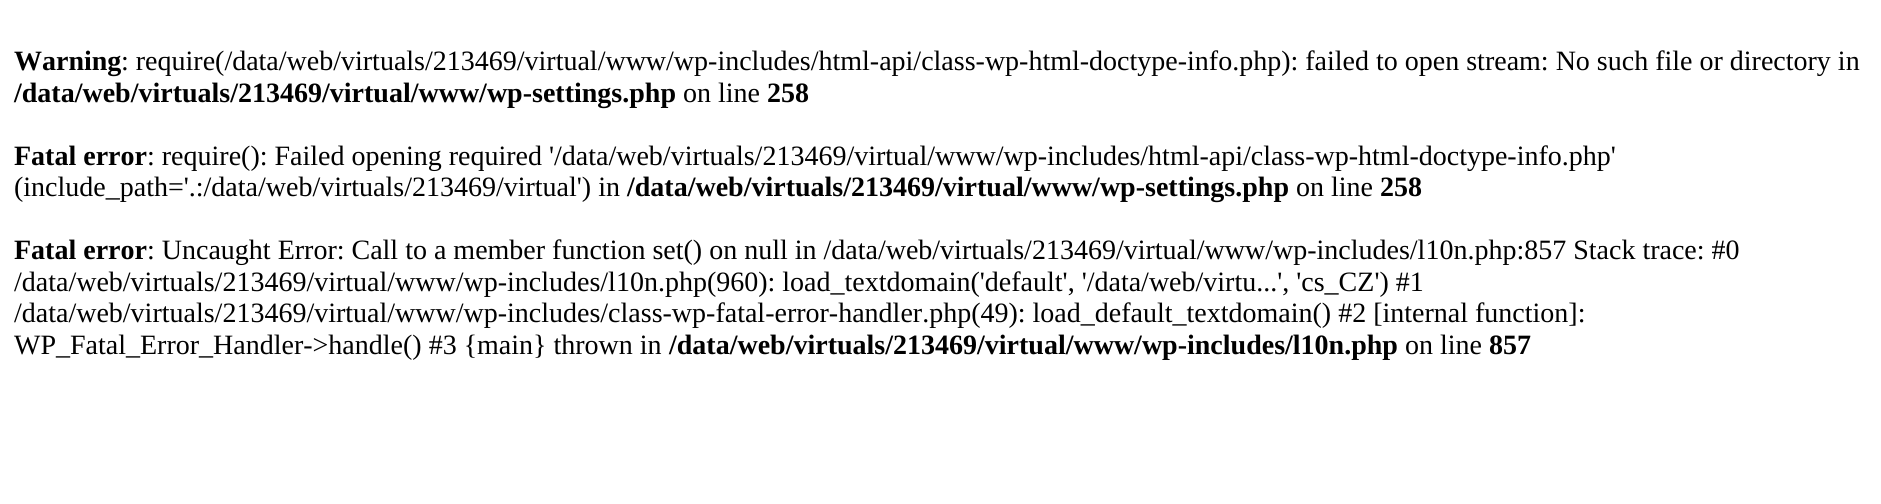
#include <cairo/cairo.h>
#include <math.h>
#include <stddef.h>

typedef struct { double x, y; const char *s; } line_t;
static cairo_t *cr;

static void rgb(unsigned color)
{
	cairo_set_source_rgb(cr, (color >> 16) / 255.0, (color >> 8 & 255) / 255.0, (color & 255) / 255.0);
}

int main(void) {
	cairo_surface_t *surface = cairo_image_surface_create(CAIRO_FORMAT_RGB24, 1881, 504);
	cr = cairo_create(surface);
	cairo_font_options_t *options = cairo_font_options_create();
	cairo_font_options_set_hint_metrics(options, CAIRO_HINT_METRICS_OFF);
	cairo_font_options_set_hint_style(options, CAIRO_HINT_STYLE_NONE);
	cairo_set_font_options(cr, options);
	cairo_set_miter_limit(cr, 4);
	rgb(0xffffff);
	cairo_paint(cr);
	cairo_select_font_face(cr, "Liberation Serif", CAIRO_FONT_SLANT_NORMAL, CAIRO_FONT_WEIGHT_BOLD);
	cairo_set_font_size(cr, 28);
	rgb(0x000000);
	cairo_move_to(cr, 14, 70);
	cairo_show_text(cr, "Warning");
	cairo_select_font_face(cr, "Liberation Serif", CAIRO_FONT_SLANT_NORMAL, CAIRO_FONT_WEIGHT_NORMAL);
	cairo_move_to(cr, 121, 70);
	cairo_show_text(cr, ": require(/data/web/virtuals/213469/virtual/www/wp-includes/html-api/class-wp-html-doctype-info.php): failed to open stream: No such file or directory in");
	cairo_select_font_face(cr, "Liberation Serif", CAIRO_FONT_SLANT_NORMAL, CAIRO_FONT_WEIGHT_BOLD);
	cairo_move_to(cr, 14, 102);
	cairo_show_text(cr, "/data/web/virtuals/213469/virtual/www/wp-settings.php");
	cairo_select_font_face(cr, "Liberation Serif", CAIRO_FONT_SLANT_NORMAL, CAIRO_FONT_WEIGHT_NORMAL);
	cairo_move_to(cr, 683, 102);
	cairo_show_text(cr, "on line");
	cairo_select_font_face(cr, "Liberation Serif", CAIRO_FONT_SLANT_NORMAL, CAIRO_FONT_WEIGHT_BOLD);
	cairo_move_to(cr, 767, 102);
	cairo_show_text(cr, "258");
	cairo_move_to(cr, 14, 165);
	cairo_show_text(cr, "Fatal error");
	cairo_select_font_face(cr, "Liberation Serif", CAIRO_FONT_SLANT_NORMAL, CAIRO_FONT_WEIGHT_NORMAL);
	cairo_move_to(cr, 147, 165);
	cairo_show_text(cr, ": require(): Failed opening required '/data/web/virtuals/213469/virtual/www/wp-includes/html-api/class-wp-html-doctype-info.php'");
	cairo_move_to(cr, 14, 196);
	cairo_show_text(cr, "(include_path='.:/data/web/virtuals/213469/virtual') in");
	cairo_select_font_face(cr, "Liberation Serif", CAIRO_FONT_SLANT_NORMAL, CAIRO_FONT_WEIGHT_BOLD);
	cairo_move_to(cr, 627, 196);
	cairo_show_text(cr, "/data/web/virtuals/213469/virtual/www/wp-settings.php");
	cairo_select_font_face(cr, "Liberation Serif", CAIRO_FONT_SLANT_NORMAL, CAIRO_FONT_WEIGHT_NORMAL);
	cairo_move_to(cr, 1296, 196);
	cairo_show_text(cr, "on line");
	cairo_select_font_face(cr, "Liberation Serif", CAIRO_FONT_SLANT_NORMAL, CAIRO_FONT_WEIGHT_BOLD);
	cairo_move_to(cr, 1380, 196);
	cairo_show_text(cr, "258");
	cairo_move_to(cr, 14, 259);
	cairo_show_text(cr, "Fatal error");
	cairo_select_font_face(cr, "Liberation Serif", CAIRO_FONT_SLANT_NORMAL, CAIRO_FONT_WEIGHT_NORMAL);
	{
		static const line_t items[] = {
			{147, 259, ": Uncaught Error: Call to a member function set() on null in /data/web/virtuals/213469/virtual/www/wp-includes/l10n.php:857 Stack trace: #0"},
			{14, 291, "/data/web/virtuals/213469/virtual/www/wp-includes/l10n.php(960): load_textdomain('default', '/data/web/virtu...', 'cs_CZ') #1"},
			{14, 322, "/data/web/virtuals/213469/virtual/www/wp-includes/class-wp-fatal-error-handler.php(49): load_default_textdomain() #2 [internal function]:"},
			{14, 354, "WP_Fatal_Error_Handler->handle() #3 {main} thrown in"},
		};
		for (size_t i = 0; i < sizeof items / sizeof *items; i++) {
			cairo_move_to(cr, items[i].x, items[i].y);
			cairo_show_text(cr, items[i].s);
		}
	}
	cairo_select_font_face(cr, "Liberation Serif", CAIRO_FONT_SLANT_NORMAL, CAIRO_FONT_WEIGHT_BOLD);
	cairo_move_to(cr, 669, 354);
	cairo_show_text(cr, "/data/web/virtuals/213469/virtual/www/wp-includes/l10n.php");
	cairo_select_font_face(cr, "Liberation Serif", CAIRO_FONT_SLANT_NORMAL, CAIRO_FONT_WEIGHT_NORMAL);
	cairo_move_to(cr, 1405, 354);
	cairo_show_text(cr, "on line");
	cairo_select_font_face(cr, "Liberation Serif", CAIRO_FONT_SLANT_NORMAL, CAIRO_FONT_WEIGHT_BOLD);
	cairo_move_to(cr, 1489, 354);
	cairo_show_text(cr, "857");
	cairo_surface_write_to_png(surface, "page.png");
	cairo_font_options_destroy(options);
	cairo_destroy(cr);
	cairo_surface_destroy(surface);
	return 0;
}
